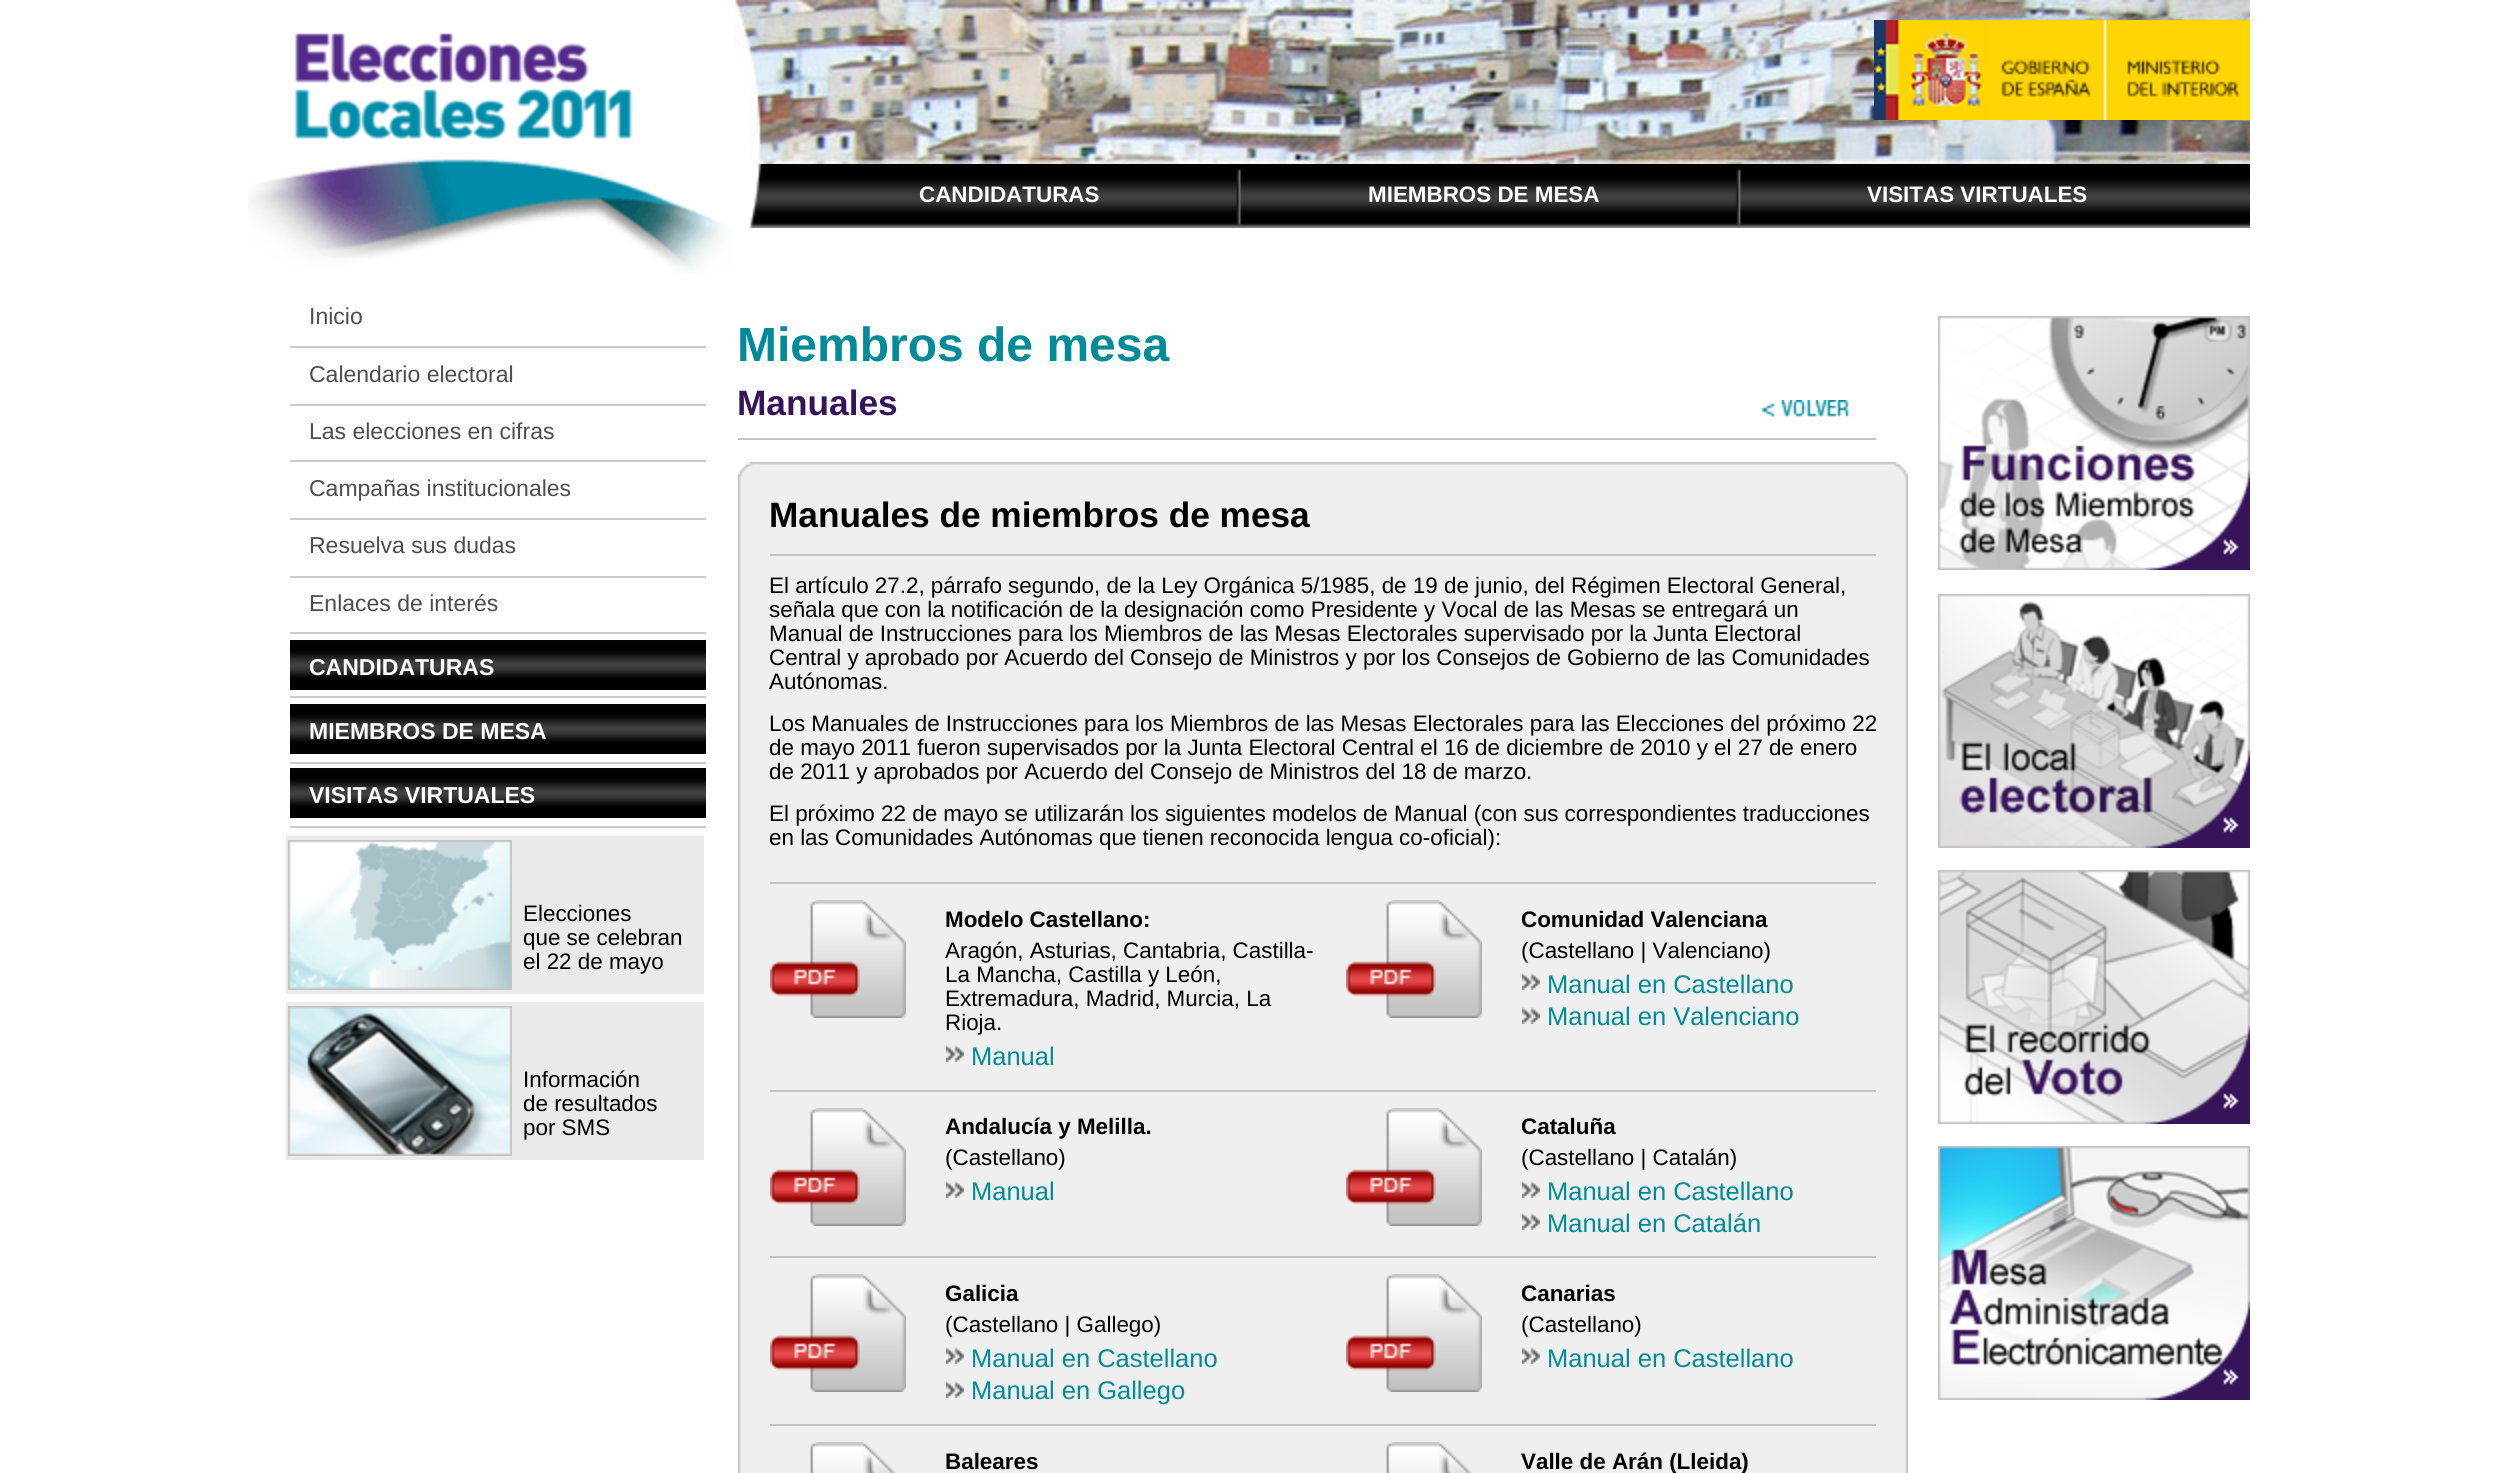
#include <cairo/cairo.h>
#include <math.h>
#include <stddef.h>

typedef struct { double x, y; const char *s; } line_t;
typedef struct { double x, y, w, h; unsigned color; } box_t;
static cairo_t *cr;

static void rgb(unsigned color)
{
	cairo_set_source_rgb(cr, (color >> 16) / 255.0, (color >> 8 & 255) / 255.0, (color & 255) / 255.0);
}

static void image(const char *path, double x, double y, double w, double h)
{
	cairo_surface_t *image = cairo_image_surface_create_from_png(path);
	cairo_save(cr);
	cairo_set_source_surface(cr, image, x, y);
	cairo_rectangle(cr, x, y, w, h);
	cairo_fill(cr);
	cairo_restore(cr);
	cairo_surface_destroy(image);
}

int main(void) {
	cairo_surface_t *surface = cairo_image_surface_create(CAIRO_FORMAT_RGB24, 2498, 1473);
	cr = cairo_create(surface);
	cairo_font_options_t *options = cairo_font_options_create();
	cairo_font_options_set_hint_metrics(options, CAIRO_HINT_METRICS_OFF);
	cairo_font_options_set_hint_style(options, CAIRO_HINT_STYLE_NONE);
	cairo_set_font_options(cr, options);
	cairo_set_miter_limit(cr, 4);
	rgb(0xffffff);
	cairo_paint(cr);
	image("img/1.png", 248, 33, 484, 240);
	image("img/2.png", 734, 0, 1516, 164);
	image("img/3.png", 1874, 20, 376, 100);
	image("img/4.png", 748, 164, 1502, 64);
	{
		static const box_t items[] = {
			{290, 346, 416, 2, 0xcccaca},
			{290, 404, 416, 2, 0xcccaca},
			{290, 460, 416, 2, 0xcccaca},
			{290, 518, 416, 2, 0xcccaca},
			{290, 576, 416, 2, 0xcccaca},
			{290, 632, 416, 2, 0xcccaca},
		};
		for (size_t i = 0; i < sizeof items / sizeof *items; i++) {
			rgb(items[i].color);
			cairo_rectangle(cr, items[i].x, items[i].y, items[i].w, items[i].h);
			cairo_fill(cr);
		}
	}
	image("img/5.png", 290, 640, 416, 50);
	cairo_rectangle(cr, 290, 696, 416, 2);
	cairo_fill(cr);
	image("img/5.png", 290, 704, 416, 50);
	cairo_rectangle(cr, 290, 762, 416, 2);
	cairo_fill(cr);
	image("img/5.png", 290, 768, 416, 50);
	cairo_rectangle(cr, 290, 826, 416, 2);
	cairo_fill(cr);
	rgb(0xeaeaea);
	cairo_rectangle(cr, 286, 836, 418, 158);
	cairo_fill(cr);
	image("img/6.png", 288, 840, 224, 150);
	cairo_rectangle(cr, 286, 1002, 418, 158);
	cairo_fill(cr);
	image("img/7.png", 288, 1006, 224, 150);
	rgb(0xc3c3c3);
	cairo_rectangle(cr, 738, 438, 1138, 2);
	cairo_fill(cr);
	image("img/8.png", 1762, 400, 87, 17);
	image("img/9.png", 738, 462, 1155, 1011);
	image("img/10.png", 1893, 462, 15, 1011);
	cairo_rectangle(cr, 770, 554, 1106, 2);
	cairo_fill(cr);
	cairo_rectangle(cr, 770, 882, 1106, 2);
	cairo_fill(cr);
	image("img/11.png", 770, 900, 136, 118);
	image("img/12.png", 946, 1045, 18, 17);
	image("img/13.png", 1346, 900, 136, 118);
	image("img/14.png", 1522, 973, 18, 17);
	image("img/14.png", 1522, 1007, 18, 17);
	cairo_rectangle(cr, 770, 1090, 1106, 2);
	cairo_fill(cr);
	image("img/11.png", 770, 1108, 136, 118);
	image("img/12.png", 946, 1181, 18, 17);
	image("img/13.png", 1346, 1108, 136, 118);
	image("img/14.png", 1522, 1181, 18, 17);
	image("img/14.png", 1522, 1213, 18, 17);
	cairo_rectangle(cr, 770, 1256, 1106, 2);
	cairo_fill(cr);
	image("img/11.png", 770, 1274, 136, 118);
	image("img/12.png", 946, 1347, 18, 17);
	image("img/12.png", 946, 1381, 18, 17);
	image("img/13.png", 1346, 1274, 136, 118);
	image("img/14.png", 1522, 1347, 18, 17);
	cairo_rectangle(cr, 770, 1424, 1106, 2);
	cairo_fill(cr);
	image("img/15.png", 810, 1442, 86, 31);
	image("img/15.png", 1386, 1442, 86, 31);
	image("img/16.png", 1938, 316, 312, 254);
	image("img/17.png", 1938, 594, 312, 254);
	image("img/18.png", 1938, 870, 312, 254);
	image("img/19.png", 1938, 1146, 312, 254);
	cairo_select_font_face(cr, "Liberation Sans", CAIRO_FONT_SLANT_NORMAL, CAIRO_FONT_WEIGHT_BOLD);
	cairo_set_font_size(cr, 22.4);
	rgb(0xffffff);
	{
		static const line_t items[] = {
			{919, 202, "CANDIDATURAS"},
			{1368, 202, "MIEMBROS DE MESA"},
			{1867, 202, "VISITAS VIRTUALES"},
		};
		for (size_t i = 0; i < sizeof items / sizeof *items; i++) {
			cairo_move_to(cr, items[i].x, items[i].y);
			cairo_show_text(cr, items[i].s);
		}
	}
	cairo_select_font_face(cr, "Liberation Sans", CAIRO_FONT_SLANT_NORMAL, CAIRO_FONT_WEIGHT_NORMAL);
	cairo_set_font_size(cr, 23);
	rgb(0x4d4d4d);
	{
		static const line_t items[] = {
			{309, 324, "Inicio"},
			{309, 382, "Calendario electoral"},
			{309, 439, "Las elecciones en cifras"},
			{309, 496, "Campañas institucionales"},
			{309, 553, "Resuelva sus dudas"},
			{309, 611, "Enlaces de interés"},
		};
		for (size_t i = 0; i < sizeof items / sizeof *items; i++) {
			cairo_move_to(cr, items[i].x, items[i].y);
			cairo_show_text(cr, items[i].s);
		}
	}
	cairo_select_font_face(cr, "Liberation Sans", CAIRO_FONT_SLANT_NORMAL, CAIRO_FONT_WEIGHT_BOLD);
	rgb(0xffffff);
	{
		static const line_t items[] = {
			{309, 675, "CANDIDATURAS"},
			{309, 739, "MIEMBROS DE MESA"},
			{309, 803, "VISITAS VIRTUALES"},
		};
		for (size_t i = 0; i < sizeof items / sizeof *items; i++) {
			cairo_move_to(cr, items[i].x, items[i].y);
			cairo_show_text(cr, items[i].s);
		}
	}
	cairo_select_font_face(cr, "Liberation Sans", CAIRO_FONT_SLANT_NORMAL, CAIRO_FONT_WEIGHT_NORMAL);
	cairo_set_font_size(cr, 22.4);
	rgb(0x000000);
	{
		static const line_t items[] = {
			{523, 921, "Elecciones"},
			{523, 945, "que se celebran"},
			{523, 969, "el 22 de mayo"},
			{523, 1087, "Información"},
			{523, 1111, "de resultados"},
			{523, 1135, "por SMS"},
		};
		for (size_t i = 0; i < sizeof items / sizeof *items; i++) {
			cairo_move_to(cr, items[i].x, items[i].y);
			cairo_show_text(cr, items[i].s);
		}
	}
	cairo_select_font_face(cr, "Liberation Sans", CAIRO_FONT_SLANT_NORMAL, CAIRO_FONT_WEIGHT_BOLD);
	cairo_set_font_size(cr, 48);
	rgb(0x008b99);
	cairo_move_to(cr, 737, 361);
	cairo_show_text(cr, "Miembros de mesa");
	cairo_set_font_size(cr, 35.25);
	rgb(0x37145a);
	cairo_move_to(cr, 737, 415);
	cairo_show_text(cr, "Manuales");
	rgb(0x000000);
	cairo_move_to(cr, 769, 527);
	cairo_show_text(cr, "Manuales de miembros de mesa");
	cairo_select_font_face(cr, "Liberation Sans", CAIRO_FONT_SLANT_NORMAL, CAIRO_FONT_WEIGHT_NORMAL);
	cairo_set_font_size(cr, 22.4);
	{
		static const line_t items[] = {
			{769, 593, "El artículo 27.2, párrafo segundo, de la Ley Orgánica 5/1985, de 19 de junio, del Régimen Electoral General,"},
			{769, 617, "señala que con la notificación de la designación como Presidente y Vocal de las Mesas se entregará un"},
			{769, 641, "Manual de Instrucciones para los Miembros de las Mesas Electorales supervisado por la Junta Electoral"},
			{769, 665, "Central y aprobado por Acuerdo del Consejo de Ministros y por los Consejos de Gobierno de las Comunidades"},
			{769, 689, "Autónomas."},
			{769, 731, "Los Manuales de Instrucciones para los Miembros de las Mesas Electorales para las Elecciones del próximo 22"},
			{769, 755, "de mayo 2011 fueron supervisados por la Junta Electoral Central el 16 de diciembre de 2010 y el 27 de enero"},
			{769, 779, "de 2011 y aprobados por Acuerdo del Consejo de Ministros del 18 de marzo."},
			{769, 821, "El próximo 22 de mayo se utilizarán los siguientes modelos de Manual (con sus correspondientes traducciones"},
			{769, 845, "en las Comunidades Autónomas que tienen reconocida lengua co-oficial):"},
		};
		for (size_t i = 0; i < sizeof items / sizeof *items; i++) {
			cairo_move_to(cr, items[i].x, items[i].y);
			cairo_show_text(cr, items[i].s);
		}
	}
	cairo_select_font_face(cr, "Liberation Sans", CAIRO_FONT_SLANT_NORMAL, CAIRO_FONT_WEIGHT_BOLD);
	cairo_move_to(cr, 945, 927);
	cairo_show_text(cr, "Modelo Castellano:");
	cairo_select_font_face(cr, "Liberation Sans", CAIRO_FONT_SLANT_NORMAL, CAIRO_FONT_WEIGHT_NORMAL);
	{
		static const line_t items[] = {
			{945, 958, "Aragón, Asturias, Cantabria, Castilla-"},
			{945, 982, "La Mancha, Castilla y León,"},
			{945, 1006, "Extremadura, Madrid, Murcia, La"},
			{945, 1030, "Rioja."},
		};
		for (size_t i = 0; i < sizeof items / sizeof *items; i++) {
			cairo_move_to(cr, items[i].x, items[i].y);
			cairo_show_text(cr, items[i].s);
		}
	}
	cairo_set_font_size(cr, 25.5);
	rgb(0x008b99);
	cairo_move_to(cr, 971, 1065);
	cairo_show_text(cr, "Manual");
	cairo_select_font_face(cr, "Liberation Sans", CAIRO_FONT_SLANT_NORMAL, CAIRO_FONT_WEIGHT_BOLD);
	cairo_set_font_size(cr, 22.4);
	rgb(0x000000);
	cairo_move_to(cr, 1521, 927);
	cairo_show_text(cr, "Comunidad Valenciana");
	cairo_select_font_face(cr, "Liberation Sans", CAIRO_FONT_SLANT_NORMAL, CAIRO_FONT_WEIGHT_NORMAL);
	cairo_move_to(cr, 1521, 958);
	cairo_show_text(cr, "(Castellano | Valenciano)");
	cairo_set_font_size(cr, 25.5);
	rgb(0x008b99);
	cairo_move_to(cr, 1547, 993);
	cairo_show_text(cr, "Manual en Castellano");
	cairo_move_to(cr, 1547, 1025);
	cairo_show_text(cr, "Manual en Valenciano");
	cairo_select_font_face(cr, "Liberation Sans", CAIRO_FONT_SLANT_NORMAL, CAIRO_FONT_WEIGHT_BOLD);
	cairo_set_font_size(cr, 22.4);
	rgb(0x000000);
	cairo_move_to(cr, 945, 1134);
	cairo_show_text(cr, "Andalucía y Melilla.");
	cairo_select_font_face(cr, "Liberation Sans", CAIRO_FONT_SLANT_NORMAL, CAIRO_FONT_WEIGHT_NORMAL);
	cairo_move_to(cr, 945, 1165);
	cairo_show_text(cr, "(Castellano)");
	cairo_set_font_size(cr, 25.5);
	rgb(0x008b99);
	cairo_move_to(cr, 971, 1200);
	cairo_show_text(cr, "Manual");
	cairo_select_font_face(cr, "Liberation Sans", CAIRO_FONT_SLANT_NORMAL, CAIRO_FONT_WEIGHT_BOLD);
	cairo_set_font_size(cr, 22.4);
	rgb(0x000000);
	cairo_move_to(cr, 1521, 1134);
	cairo_show_text(cr, "Cataluña");
	cairo_select_font_face(cr, "Liberation Sans", CAIRO_FONT_SLANT_NORMAL, CAIRO_FONT_WEIGHT_NORMAL);
	cairo_move_to(cr, 1521, 1165);
	cairo_show_text(cr, "(Castellano | Catalán)");
	cairo_set_font_size(cr, 25.5);
	rgb(0x008b99);
	cairo_move_to(cr, 1547, 1200);
	cairo_show_text(cr, "Manual en Castellano");
	cairo_move_to(cr, 1547, 1232);
	cairo_show_text(cr, "Manual en Catalán");
	cairo_select_font_face(cr, "Liberation Sans", CAIRO_FONT_SLANT_NORMAL, CAIRO_FONT_WEIGHT_BOLD);
	cairo_set_font_size(cr, 22.4);
	rgb(0x000000);
	cairo_move_to(cr, 945, 1301);
	cairo_show_text(cr, "Galicia");
	cairo_select_font_face(cr, "Liberation Sans", CAIRO_FONT_SLANT_NORMAL, CAIRO_FONT_WEIGHT_NORMAL);
	cairo_move_to(cr, 945, 1332);
	cairo_show_text(cr, "(Castellano | Gallego)");
	cairo_set_font_size(cr, 25.5);
	rgb(0x008b99);
	cairo_move_to(cr, 971, 1367);
	cairo_show_text(cr, "Manual en Castellano");
	cairo_move_to(cr, 971, 1399);
	cairo_show_text(cr, "Manual en Gallego");
	cairo_select_font_face(cr, "Liberation Sans", CAIRO_FONT_SLANT_NORMAL, CAIRO_FONT_WEIGHT_BOLD);
	cairo_set_font_size(cr, 22.4);
	rgb(0x000000);
	cairo_move_to(cr, 1521, 1301);
	cairo_show_text(cr, "Canarias");
	cairo_select_font_face(cr, "Liberation Sans", CAIRO_FONT_SLANT_NORMAL, CAIRO_FONT_WEIGHT_NORMAL);
	cairo_move_to(cr, 1521, 1332);
	cairo_show_text(cr, "(Castellano)");
	cairo_set_font_size(cr, 25.5);
	rgb(0x008b99);
	cairo_move_to(cr, 1547, 1367);
	cairo_show_text(cr, "Manual en Castellano");
	cairo_select_font_face(cr, "Liberation Sans", CAIRO_FONT_SLANT_NORMAL, CAIRO_FONT_WEIGHT_BOLD);
	cairo_set_font_size(cr, 22.4);
	rgb(0x000000);
	cairo_move_to(cr, 945, 1469);
	cairo_show_text(cr, "Baleares");
	cairo_move_to(cr, 1521, 1469);
	cairo_show_text(cr, "Valle de Arán (Lleida)");
	cairo_surface_write_to_png(surface, "page.png");
	cairo_font_options_destroy(options);
	cairo_destroy(cr);
	cairo_surface_destroy(surface);
	return 0;
}
